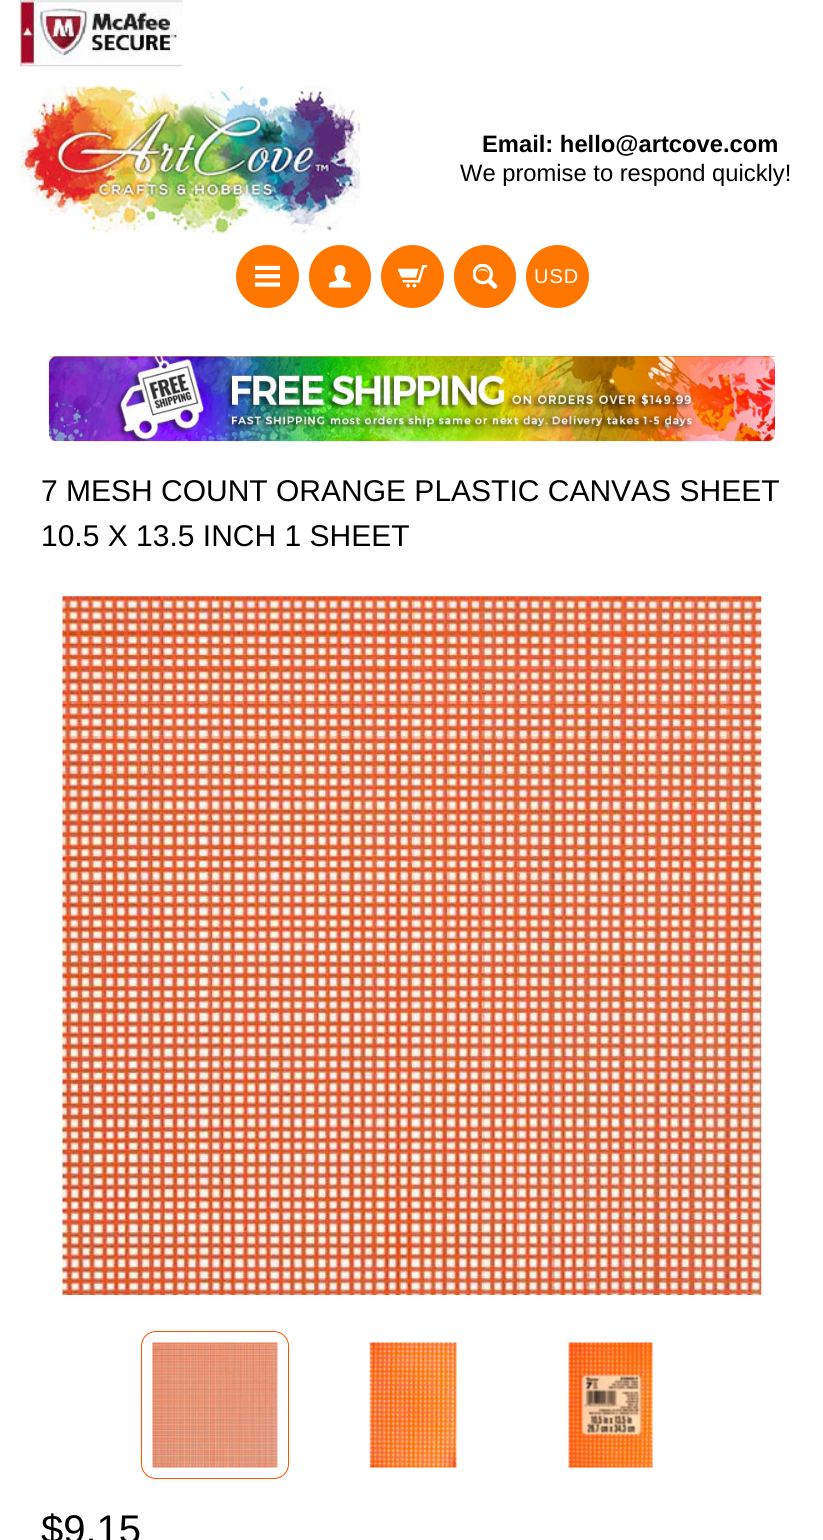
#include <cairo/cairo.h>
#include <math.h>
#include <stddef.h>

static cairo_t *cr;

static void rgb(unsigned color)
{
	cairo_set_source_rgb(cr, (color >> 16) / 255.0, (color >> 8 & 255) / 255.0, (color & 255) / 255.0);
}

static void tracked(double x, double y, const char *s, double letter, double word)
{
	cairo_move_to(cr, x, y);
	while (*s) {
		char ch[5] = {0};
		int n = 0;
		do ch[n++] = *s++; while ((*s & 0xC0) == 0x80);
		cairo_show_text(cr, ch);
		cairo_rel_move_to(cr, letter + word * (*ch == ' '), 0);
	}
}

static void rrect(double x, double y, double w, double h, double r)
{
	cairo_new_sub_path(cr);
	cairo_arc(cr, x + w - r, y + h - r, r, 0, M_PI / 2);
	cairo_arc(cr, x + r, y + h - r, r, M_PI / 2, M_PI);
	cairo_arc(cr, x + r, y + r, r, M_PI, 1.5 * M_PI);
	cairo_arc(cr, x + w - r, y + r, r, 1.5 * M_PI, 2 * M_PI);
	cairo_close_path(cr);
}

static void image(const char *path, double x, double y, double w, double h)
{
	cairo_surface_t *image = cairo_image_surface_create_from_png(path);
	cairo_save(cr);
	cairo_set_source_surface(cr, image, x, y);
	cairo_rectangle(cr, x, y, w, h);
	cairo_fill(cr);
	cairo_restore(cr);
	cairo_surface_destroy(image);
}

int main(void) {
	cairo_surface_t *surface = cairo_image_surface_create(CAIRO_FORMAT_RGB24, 823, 1540);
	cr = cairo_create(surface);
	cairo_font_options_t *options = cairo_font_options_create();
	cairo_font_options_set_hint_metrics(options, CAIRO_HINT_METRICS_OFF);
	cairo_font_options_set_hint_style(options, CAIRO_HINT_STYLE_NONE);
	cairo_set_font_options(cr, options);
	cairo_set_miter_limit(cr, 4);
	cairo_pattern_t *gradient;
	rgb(0xffffff);
	cairo_paint(cr);
	image("img/1.png", 20, 0, 163, 67);
	image("img/2.png", 20, 86, 341, 147);
	rgb(0xff7700);
	cairo_arc(cr, 267.5, 276.5, 29.5, 0, 2 * M_PI);
	cairo_fill_preserve(cr);
	cairo_set_line_width(cr, 4);
	cairo_stroke(cr);
	image("img/3.png", 255, 265, 25, 22);
	rrect(311, 247, 58, 59, 29);
	cairo_fill_preserve(cr);
	cairo_stroke(cr);
	image("img/4.png", 329, 265, 22, 23);
	cairo_arc(cr, 412.5, 276.5, 29.5, 0, 2 * M_PI);
	cairo_fill_preserve(cr);
	cairo_stroke(cr);
	image("img/5.png", 398, 265, 30, 23);
	rrect(456, 247, 58, 59, 29);
	cairo_fill_preserve(cr);
	cairo_stroke(cr);
	image("img/6.png", 473, 264, 25, 25);
	cairo_arc(cr, 557.5, 276.5, 29.5, 0, 2 * M_PI);
	cairo_fill_preserve(cr);
	cairo_stroke(cr);
	gradient = cairo_pattern_create_linear(209, 196, 615, 602);
	cairo_pattern_add_color_stop_rgba(gradient, 0.3, 1, 0.659, 0, 1);
	cairo_pattern_add_color_stop_rgba(gradient, 1, 0.988, 0.271, 0, 1);
	cairo_set_source(cr, gradient);
	cairo_pattern_destroy(gradient);
	cairo_rectangle(cr, 49, 356, 726, 1);
	cairo_fill(cr);
	image("img/7.png", 48, 356, 727, 86);
	image("img/8.png", 62, 596, 700, 699);
	rrect(141.5, 1331.5, 147, 147, 14.5);
	rgb(0xff5300);
	cairo_set_line_width(cr, 1);
	cairo_stroke(cr);
	image("img/9.png", 152, 1342, 126, 126);
	image("img/10.png", 369, 1342, 88, 126);
	image("img/11.png", 568, 1342, 85, 126);
	cairo_select_font_face(cr, "Liberation Sans", CAIRO_FONT_SLANT_NORMAL, CAIRO_FONT_WEIGHT_BOLD);
	cairo_set_font_size(cr, 23.75);
	rgb(0x000000);
	cairo_move_to(cr, 482, 152);
	cairo_show_text(cr, "Email: hello@artcove.com");
	cairo_select_font_face(cr, "Liberation Sans", CAIRO_FONT_SLANT_NORMAL, CAIRO_FONT_WEIGHT_NORMAL);
	cairo_move_to(cr, 460, 181);
	cairo_show_text(cr, "We promise to respond quickly!");
	cairo_set_font_size(cr, 20);
	rgb(0xffffff);
	tracked(534, 283, "USD", 1, 0);
	cairo_set_font_size(cr, 30);
	rgb(0x000000);
	cairo_move_to(cr, 41, 501);
	cairo_show_text(cr, "7 MESH COUNT ORANGE PLASTIC CANVAS SHEET");
	cairo_move_to(cr, 41, 546);
	cairo_show_text(cr, "10.5 X 13.5 INCH 1 SHEET");
	cairo_set_font_size(cr, 40);
	cairo_move_to(cr, 41, 1543);
	cairo_show_text(cr, "$9.15");
	cairo_surface_write_to_png(surface, "page.png");
	cairo_font_options_destroy(options);
	cairo_destroy(cr);
	cairo_surface_destroy(surface);
	return 0;
}
